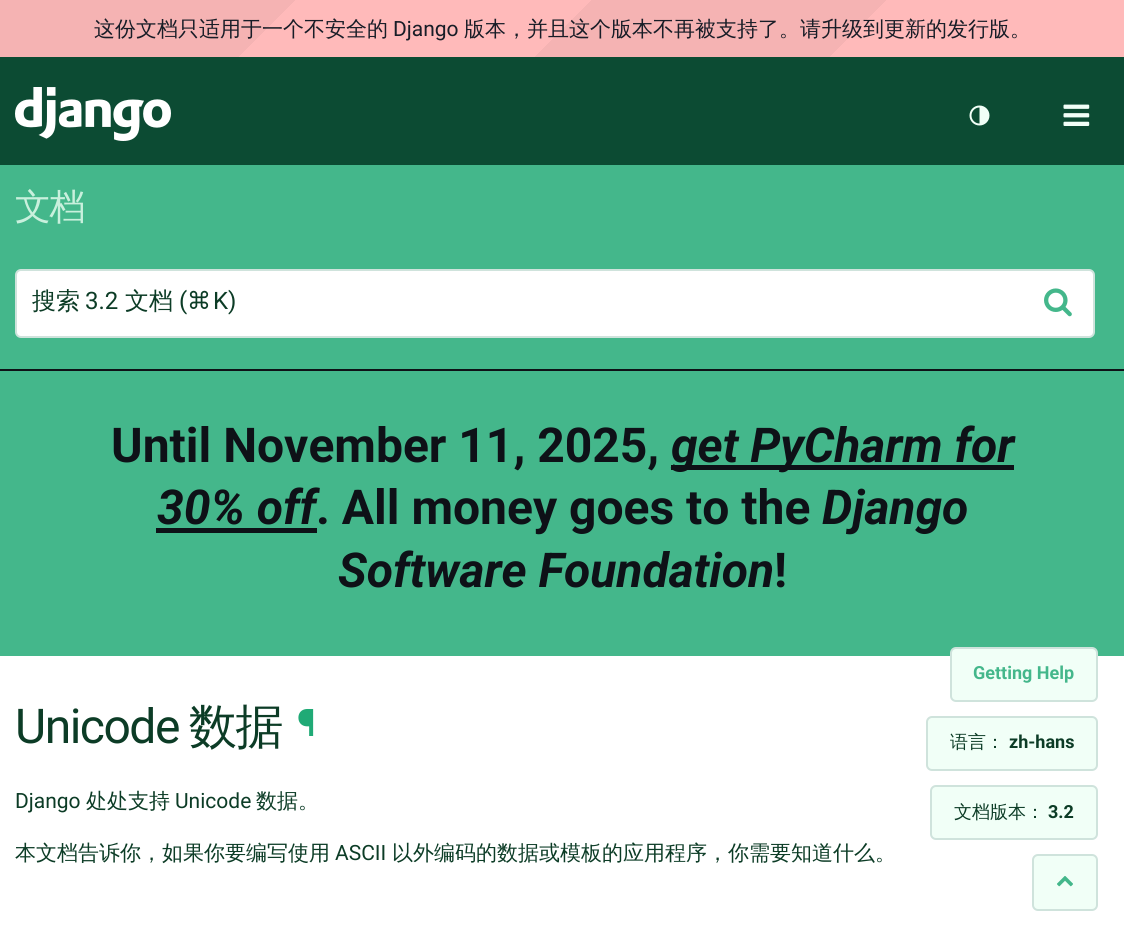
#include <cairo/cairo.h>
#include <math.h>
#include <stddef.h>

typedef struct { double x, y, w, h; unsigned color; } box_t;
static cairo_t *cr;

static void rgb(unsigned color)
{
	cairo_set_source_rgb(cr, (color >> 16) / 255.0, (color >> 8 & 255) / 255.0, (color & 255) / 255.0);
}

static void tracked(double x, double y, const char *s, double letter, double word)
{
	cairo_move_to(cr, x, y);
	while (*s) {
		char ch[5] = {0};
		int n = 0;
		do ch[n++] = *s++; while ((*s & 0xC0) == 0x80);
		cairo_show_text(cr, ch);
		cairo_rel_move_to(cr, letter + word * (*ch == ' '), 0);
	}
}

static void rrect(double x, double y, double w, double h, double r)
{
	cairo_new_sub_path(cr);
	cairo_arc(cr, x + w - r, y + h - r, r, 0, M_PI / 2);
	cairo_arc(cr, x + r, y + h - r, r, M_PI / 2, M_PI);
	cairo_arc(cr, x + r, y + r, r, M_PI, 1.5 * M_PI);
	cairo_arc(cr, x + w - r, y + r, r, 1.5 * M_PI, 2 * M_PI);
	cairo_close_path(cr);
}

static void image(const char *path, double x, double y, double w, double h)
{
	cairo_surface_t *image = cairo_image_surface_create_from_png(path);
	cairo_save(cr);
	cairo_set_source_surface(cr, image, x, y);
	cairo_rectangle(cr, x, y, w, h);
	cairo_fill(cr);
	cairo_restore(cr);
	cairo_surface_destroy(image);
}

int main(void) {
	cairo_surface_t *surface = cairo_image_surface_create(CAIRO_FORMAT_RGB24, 1124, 938);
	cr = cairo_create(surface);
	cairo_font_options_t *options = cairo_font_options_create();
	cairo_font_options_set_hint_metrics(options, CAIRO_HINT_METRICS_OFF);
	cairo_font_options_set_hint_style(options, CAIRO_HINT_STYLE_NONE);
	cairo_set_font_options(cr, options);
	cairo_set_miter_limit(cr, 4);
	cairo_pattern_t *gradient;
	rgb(0x44b78b);
	cairo_paint(cr);
	gradient = cairo_pattern_create_linear(267, -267, 858, 324);
	cairo_pattern_add_color_stop_rgba(gradient, 0.25, 0.961, 0.702, 0.702, 1);
	cairo_pattern_add_color_stop_rgba(gradient, 0.25, 1, 0.729, 0.729, 1);
	cairo_pattern_add_color_stop_rgba(gradient, 0.5, 1, 0.729, 0.729, 1);
	cairo_pattern_add_color_stop_rgba(gradient, 0.5, 0.961, 0.702, 0.702, 1);
	cairo_pattern_add_color_stop_rgba(gradient, 0.75, 0.961, 0.702, 0.702, 1);
	cairo_pattern_add_color_stop_rgba(gradient, 0.75, 1, 0.729, 0.729, 1);
	cairo_pattern_add_color_stop_rgba(gradient, 1, 1, 0.729, 0.729, 1);
	cairo_set_source(cr, gradient);
	cairo_pattern_destroy(gradient);
	cairo_rectangle(cr, 0, 0, 1124, 57);
	cairo_fill(cr);
	rgb(0x0c4b33);
	cairo_rectangle(cr, 0, 57, 1124, 108);
	cairo_fill(cr);
	image("img/1.png", 15, 87, 156, 54);
	image("img/2.png", 969, 105, 21, 21);
	image("img/3.png", 1063, 104, 27, 22);
	rgb(0xffffff);
	rrect(16, 270, 1078, 67, 5);
	cairo_fill_preserve(cr);
	rgb(0xcfe3dc);
	cairo_stroke(cr);
	image("img/4.png", 1044, 288, 28, 29);
	{
		static const box_t items[] = {
			{0, 369, 1124, 2, 0x0e1117},
			{671, 465, 343, 5, 0x0e1117},
			{156, 528, 161, 5, 0x0e1117},
			{0, 656, 1124, 282, 0xffffff},
		};
		for (size_t i = 0; i < sizeof items / sizeof *items; i++) {
			rgb(items[i].color);
			cairo_rectangle(cr, items[i].x, items[i].y, items[i].w, items[i].h);
			cairo_fill(cr);
		}
	}
	rgb(0xf1fff7);
	rrect(951, 648, 146, 53, 5);
	cairo_fill_preserve(cr);
	rgb(0xcfe3dc);
	cairo_stroke(cr);
	rgb(0xf1fff7);
	rrect(927, 717, 170, 53, 5);
	cairo_fill_preserve(cr);
	rgb(0xcfe3dc);
	cairo_stroke(cr);
	rgb(0xf1fff7);
	rrect(931, 786, 166, 53, 5);
	cairo_fill_preserve(cr);
	rgb(0xcfe3dc);
	cairo_stroke(cr);
	rgb(0xf1fff7);
	rrect(1033, 855, 64, 55, 5);
	cairo_fill_preserve(cr);
	rgb(0xcfe3dc);
	cairo_stroke(cr);
	image("img/5.png", 1057, 876, 16, 11);
	cairo_select_font_face(cr, "WenQuanYi Zen Hei Medium", CAIRO_FONT_SLANT_NORMAL, CAIRO_FONT_WEIGHT_NORMAL);
	cairo_set_font_size(cr, 21);
	rgb(0x181d27);
	cairo_move_to(cr, 94, 36);
	cairo_show_text(cr, "这份文档只适用于一个不安全的");
	cairo_select_font_face(cr, "Roboto", CAIRO_FONT_SLANT_NORMAL, CAIRO_FONT_WEIGHT_NORMAL);
	cairo_move_to(cr, 393, 36);
	cairo_show_text(cr, "Django");
	cairo_select_font_face(cr, "WenQuanYi Zen Hei Medium", CAIRO_FONT_SLANT_NORMAL, CAIRO_FONT_WEIGHT_NORMAL);
	cairo_move_to(cr, 464, 36);
	cairo_show_text(cr, "版本，并且这个版本不再被支持了。请升级到更新的发行版。");
	cairo_set_font_size(cr, 36);
	rgb(0xc9f0dd);
	tracked(15, 219, "文档", -1.5, 0);
	cairo_set_font_size(cr, 24);
	rgb(0x0c3c26);
	cairo_move_to(cr, 32, 309);
	cairo_show_text(cr, "搜索");
	cairo_select_font_face(cr, "Roboto", CAIRO_FONT_SLANT_NORMAL, CAIRO_FONT_WEIGHT_NORMAL);
	cairo_move_to(cr, 85, 309);
	cairo_show_text(cr, "3.2");
	cairo_select_font_face(cr, "WenQuanYi Zen Hei Medium", CAIRO_FONT_SLANT_NORMAL, CAIRO_FONT_WEIGHT_NORMAL);
	cairo_move_to(cr, 125, 309);
	cairo_show_text(cr, "文档");
	cairo_select_font_face(cr, "Roboto", CAIRO_FONT_SLANT_NORMAL, CAIRO_FONT_WEIGHT_NORMAL);
	cairo_move_to(cr, 179, 309);
	cairo_show_text(cr, "(");
	cairo_select_font_face(cr, "DejaVu Sans", CAIRO_FONT_SLANT_NORMAL, CAIRO_FONT_WEIGHT_NORMAL);
	cairo_move_to(cr, 187, 309);
	cairo_show_text(cr, "⌘");
	cairo_select_font_face(cr, "Roboto", CAIRO_FONT_SLANT_NORMAL, CAIRO_FONT_WEIGHT_NORMAL);
	cairo_move_to(cr, 213, 309);
	cairo_show_text(cr, "K)");
	cairo_select_font_face(cr, "Roboto", CAIRO_FONT_SLANT_NORMAL, CAIRO_FONT_WEIGHT_BOLD);
	cairo_set_font_size(cr, 48);
	rgb(0x0e1117);
	cairo_move_to(cr, 111, 462);
	cairo_show_text(cr, "Until November 11, 2025,");
	cairo_select_font_face(cr, "Roboto", CAIRO_FONT_SLANT_ITALIC, CAIRO_FONT_WEIGHT_BOLD);
	cairo_move_to(cr, 671, 462);
	cairo_show_text(cr, "get PyCharm for");
	cairo_move_to(cr, 157, 524);
	cairo_show_text(cr, "30% off");
	cairo_select_font_face(cr, "Roboto", CAIRO_FONT_SLANT_NORMAL, CAIRO_FONT_WEIGHT_BOLD);
	cairo_move_to(cr, 316, 524);
	cairo_show_text(cr, ". All money goes to the");
	cairo_select_font_face(cr, "Roboto", CAIRO_FONT_SLANT_ITALIC, CAIRO_FONT_WEIGHT_BOLD);
	cairo_move_to(cr, 822, 524);
	cairo_show_text(cr, "Django");
	cairo_move_to(cr, 338, 587);
	cairo_show_text(cr, "Software Foundation");
	cairo_select_font_face(cr, "Roboto", CAIRO_FONT_SLANT_NORMAL, CAIRO_FONT_WEIGHT_BOLD);
	cairo_move_to(cr, 774, 587);
	cairo_show_text(cr, "!");
	cairo_select_font_face(cr, "Roboto", CAIRO_FONT_SLANT_NORMAL, CAIRO_FONT_WEIGHT_NORMAL);
	rgb(0x0c3c26);
	tracked(15, 743, "Unicode", -1.5, 0);
	cairo_select_font_face(cr, "WenQuanYi Zen Hei Medium", CAIRO_FONT_SLANT_NORMAL, CAIRO_FONT_WEIGHT_NORMAL);
	tracked(189, 743, "数据", -1.5, 0);
	cairo_select_font_face(cr, "Roboto", CAIRO_FONT_SLANT_NORMAL, CAIRO_FONT_WEIGHT_BOLD);
	cairo_set_font_size(cr, 38);
	rgb(0x20aa76);
	tracked(297, 736, "¶", -1.5, 0);
	cairo_select_font_face(cr, "Roboto", CAIRO_FONT_SLANT_NORMAL, CAIRO_FONT_WEIGHT_NORMAL);
	cairo_set_font_size(cr, 21);
	rgb(0x0c3c26);
	cairo_move_to(cr, 15, 808);
	cairo_show_text(cr, "Django");
	cairo_select_font_face(cr, "WenQuanYi Zen Hei Medium", CAIRO_FONT_SLANT_NORMAL, CAIRO_FONT_WEIGHT_NORMAL);
	cairo_move_to(cr, 86, 808);
	cairo_show_text(cr, "处处支持");
	cairo_select_font_face(cr, "Roboto", CAIRO_FONT_SLANT_NORMAL, CAIRO_FONT_WEIGHT_NORMAL);
	cairo_move_to(cr, 175, 808);
	cairo_show_text(cr, "Unicode");
	cairo_select_font_face(cr, "WenQuanYi Zen Hei Medium", CAIRO_FONT_SLANT_NORMAL, CAIRO_FONT_WEIGHT_NORMAL);
	cairo_move_to(cr, 256, 808);
	cairo_show_text(cr, "数据。");
	cairo_move_to(cr, 15, 860);
	cairo_show_text(cr, "本文档告诉你，如果你要编写使用");
	cairo_select_font_face(cr, "Roboto", CAIRO_FONT_SLANT_NORMAL, CAIRO_FONT_WEIGHT_NORMAL);
	cairo_move_to(cr, 335, 860);
	cairo_show_text(cr, "ASCII");
	cairo_select_font_face(cr, "WenQuanYi Zen Hei Medium", CAIRO_FONT_SLANT_NORMAL, CAIRO_FONT_WEIGHT_NORMAL);
	cairo_move_to(cr, 392, 860);
	cairo_show_text(cr, "以外编码的数据或模板的应用程序，你需要知道什么。");
	cairo_select_font_face(cr, "Roboto", CAIRO_FONT_SLANT_NORMAL, CAIRO_FONT_WEIGHT_BOLD);
	cairo_set_font_size(cr, 18);
	rgb(0x44b78b);
	cairo_move_to(cr, 973, 679);
	cairo_show_text(cr, "Getting Help");
	cairo_select_font_face(cr, "WenQuanYi Zen Hei Medium", CAIRO_FONT_SLANT_NORMAL, CAIRO_FONT_WEIGHT_NORMAL);
	rgb(0x0c3c26);
	cairo_move_to(cr, 950, 748);
	cairo_show_text(cr, "语言：");
	cairo_select_font_face(cr, "Roboto", CAIRO_FONT_SLANT_NORMAL, CAIRO_FONT_WEIGHT_BOLD);
	cairo_move_to(cr, 1009, 748);
	cairo_show_text(cr, "zh-hans");
	cairo_select_font_face(cr, "WenQuanYi Zen Hei Medium", CAIRO_FONT_SLANT_NORMAL, CAIRO_FONT_WEIGHT_NORMAL);
	cairo_move_to(cr, 954, 818);
	cairo_show_text(cr, "文档版本：");
	cairo_select_font_face(cr, "Roboto", CAIRO_FONT_SLANT_NORMAL, CAIRO_FONT_WEIGHT_BOLD);
	cairo_move_to(cr, 1048, 818);
	cairo_show_text(cr, "3.2");
	cairo_surface_write_to_png(surface, "page.png");
	cairo_font_options_destroy(options);
	cairo_destroy(cr);
	cairo_surface_destroy(surface);
	return 0;
}
